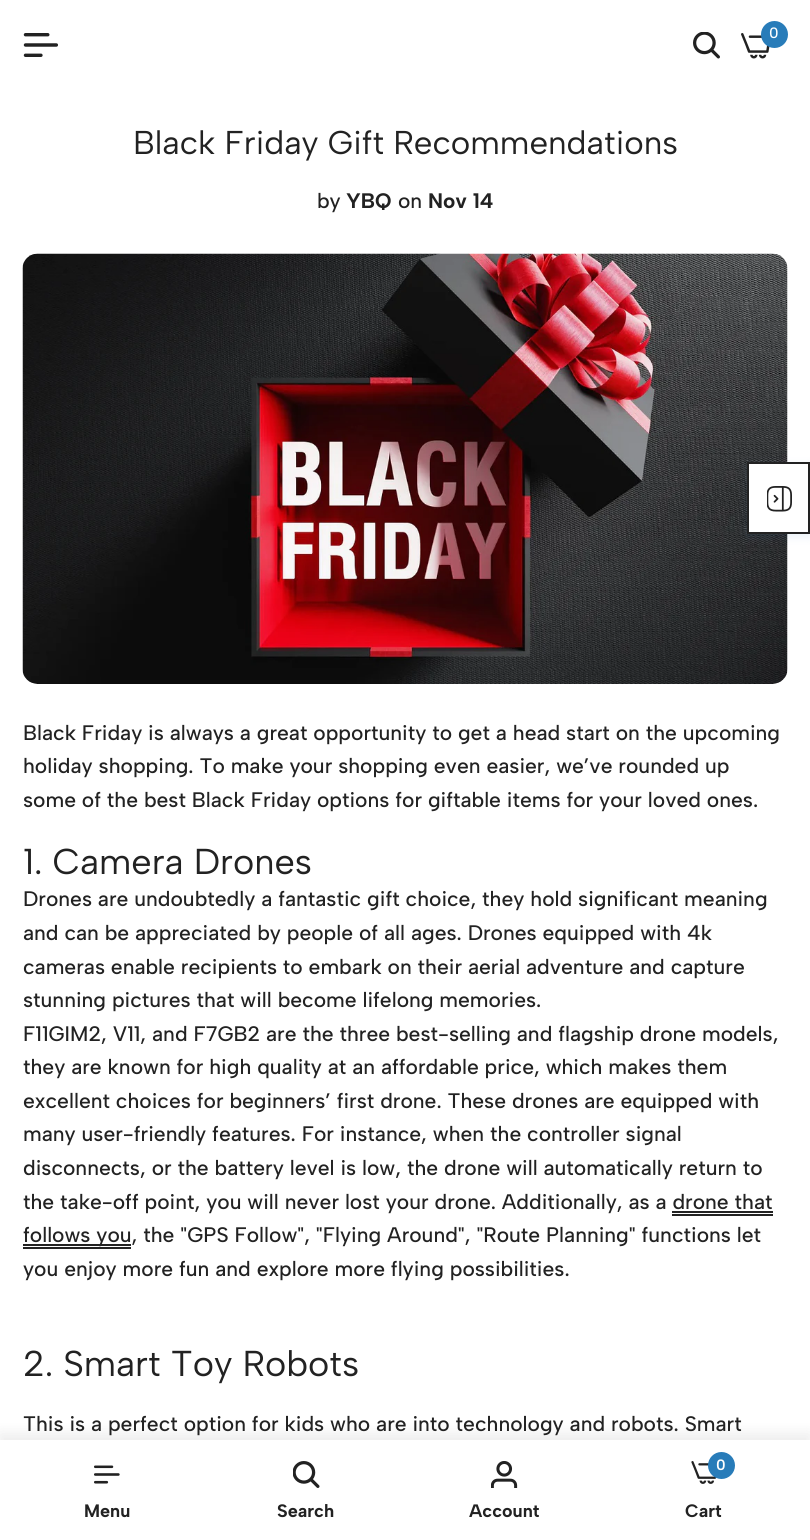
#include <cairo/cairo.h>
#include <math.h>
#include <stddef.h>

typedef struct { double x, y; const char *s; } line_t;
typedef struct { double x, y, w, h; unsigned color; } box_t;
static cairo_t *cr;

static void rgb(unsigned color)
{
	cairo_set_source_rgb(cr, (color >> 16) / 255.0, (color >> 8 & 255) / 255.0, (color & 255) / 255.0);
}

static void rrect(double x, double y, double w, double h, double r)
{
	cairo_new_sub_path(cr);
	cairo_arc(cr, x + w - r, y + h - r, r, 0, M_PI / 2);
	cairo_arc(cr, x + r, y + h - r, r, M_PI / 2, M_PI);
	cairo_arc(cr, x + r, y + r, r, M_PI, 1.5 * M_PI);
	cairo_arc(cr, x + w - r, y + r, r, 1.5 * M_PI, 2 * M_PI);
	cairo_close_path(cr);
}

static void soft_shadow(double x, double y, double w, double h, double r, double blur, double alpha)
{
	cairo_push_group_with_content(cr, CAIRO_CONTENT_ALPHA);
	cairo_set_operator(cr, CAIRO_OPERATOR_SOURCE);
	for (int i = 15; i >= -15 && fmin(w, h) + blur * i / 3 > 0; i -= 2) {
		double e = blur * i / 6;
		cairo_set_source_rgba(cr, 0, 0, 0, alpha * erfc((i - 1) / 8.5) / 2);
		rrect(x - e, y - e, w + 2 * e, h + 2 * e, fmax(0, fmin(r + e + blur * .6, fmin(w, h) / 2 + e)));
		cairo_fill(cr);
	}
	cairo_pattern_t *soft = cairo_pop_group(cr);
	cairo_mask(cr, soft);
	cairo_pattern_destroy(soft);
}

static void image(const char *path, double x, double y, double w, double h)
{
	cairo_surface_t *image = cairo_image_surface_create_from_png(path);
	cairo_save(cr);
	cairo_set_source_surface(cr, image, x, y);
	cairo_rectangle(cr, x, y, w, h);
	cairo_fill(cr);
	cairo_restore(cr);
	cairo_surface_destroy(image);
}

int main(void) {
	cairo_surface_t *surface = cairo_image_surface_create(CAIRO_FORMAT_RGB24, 810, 1540);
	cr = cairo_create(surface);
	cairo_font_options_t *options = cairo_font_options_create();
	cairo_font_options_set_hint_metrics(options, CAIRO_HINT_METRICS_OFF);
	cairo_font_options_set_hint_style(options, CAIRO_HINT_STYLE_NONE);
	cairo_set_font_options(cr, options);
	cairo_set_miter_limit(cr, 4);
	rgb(0xffffff);
	cairo_paint(cr);
	image("img/1.png", 23, 33, 35, 24);
	image("img/2.png", 693, 32, 27, 27);
	image("img/3.png", 741, 33, 29, 26);
	rgb(0x287cb9);
	cairo_arc(cr, 774.5, 34.5, 13.5, 0, 2 * M_PI);
	cairo_fill(cr);
	image("img/4.png", 22, 253, 766, 431);
	{
		static const box_t items[] = {
			{672, 1214, 101, 2, 0x222222},
			{672, 1211, 101, 2, 0x222222},
			{23, 1247, 108, 2, 0x222222},
			{23, 1244, 108, 2, 0x222222},
		};
		for (size_t i = 0; i < sizeof items / sizeof *items; i++) {
			rgb(items[i].color);
			cairo_rectangle(cr, items[i].x, items[i].y, items[i].w, items[i].h);
			cairo_fill(cr);
		}
	}
	rgb(0x287cb9);
	soft_shadow(747, 465, 63, 72, 0, 4.5, 0.1);
	rgb(0xffffff);
	cairo_rectangle(cr, 748, 463, 61, 70);
	cairo_fill_preserve(cr);
	rgb(0x222222);
	cairo_stroke(cr);
	image("img/5.png", 767, 486, 25, 26);
	rgb(0x000000);
	soft_shadow(0, 1434, 810, 101, 0, 7.5, 0.08);
	rgb(0xffffff);
	cairo_rectangle(cr, 0, 1440, 810, 100);
	cairo_fill(cr);
	image("img/6.png", 94, 1465, 26, 19);
	image("img/7.png", 293, 1461, 27, 27);
	image("img/8.png", 491, 1461, 27, 27);
	image("img/9.png", 691, 1461, 26, 23);
	rgb(0x287cb9);
	cairo_arc(cr, 721.5, 1465.5, 13.5, 0, 2 * M_PI);
	cairo_fill(cr);
	cairo_select_font_face(cr, "Albert Sans Medium", CAIRO_FONT_SLANT_NORMAL, CAIRO_FONT_WEIGHT_NORMAL);
	cairo_set_font_size(cr, 15);
	rgb(0xffffff);
	cairo_move_to(cr, 769, 38);
	cairo_show_text(cr, "0");
	cairo_select_font_face(cr, "Albert Sans", CAIRO_FONT_SLANT_NORMAL, CAIRO_FONT_WEIGHT_NORMAL);
	cairo_set_font_size(cr, 33);
	rgb(0x222222);
	cairo_move_to(cr, 133, 154);
	cairo_show_text(cr, "Black Friday Gift Recommendations");
	cairo_select_font_face(cr, "Albert Sans Medium", CAIRO_FONT_SLANT_NORMAL, CAIRO_FONT_WEIGHT_NORMAL);
	cairo_set_font_size(cr, 21);
	cairo_move_to(cr, 317, 208);
	cairo_show_text(cr, "by");
	cairo_select_font_face(cr, "Albert Sans", CAIRO_FONT_SLANT_NORMAL, CAIRO_FONT_WEIGHT_BOLD);
	cairo_move_to(cr, 346, 208);
	cairo_show_text(cr, "YBQ");
	cairo_select_font_face(cr, "Albert Sans Medium", CAIRO_FONT_SLANT_NORMAL, CAIRO_FONT_WEIGHT_NORMAL);
	cairo_move_to(cr, 398, 208);
	cairo_show_text(cr, "on");
	cairo_select_font_face(cr, "Albert Sans", CAIRO_FONT_SLANT_NORMAL, CAIRO_FONT_WEIGHT_BOLD);
	cairo_move_to(cr, 428, 208);
	cairo_show_text(cr, "Nov 14");
	cairo_select_font_face(cr, "Albert Sans Medium", CAIRO_FONT_SLANT_NORMAL, CAIRO_FONT_WEIGHT_NORMAL);
	{
		static const line_t items[] = {
			{23, 740, "Black Friday is always a great opportunity to get a head start on the upcoming"},
			{23, 773, "holiday shopping. To make your shopping even easier, we’ve rounded up"},
			{23, 807, "some of the best Black Friday options for giftable items for your loved ones."},
		};
		for (size_t i = 0; i < sizeof items / sizeof *items; i++) {
			cairo_move_to(cr, items[i].x, items[i].y);
			cairo_show_text(cr, items[i].s);
		}
	}
	cairo_select_font_face(cr, "Albert Sans", CAIRO_FONT_SLANT_NORMAL, CAIRO_FONT_WEIGHT_NORMAL);
	cairo_set_font_size(cr, 36);
	cairo_move_to(cr, 23, 874);
	cairo_show_text(cr, "1. Camera Drones");
	cairo_select_font_face(cr, "Albert Sans Medium", CAIRO_FONT_SLANT_NORMAL, CAIRO_FONT_WEIGHT_NORMAL);
	cairo_set_font_size(cr, 21);
	{
		static const line_t items[] = {
			{23, 906, "Drones are undoubtedly a fantastic gift choice, they hold significant meaning"},
			{23, 940, "and can be appreciated by people of all ages. Drones equipped with 4k"},
			{23, 974, "cameras enable recipients to embark on their aerial adventure and capture"},
			{23, 1007, "stunning pictures that will become lifelong memories."},
			{23, 1041, "F11GIM2, V11, and F7GB2 are the three best-selling and flagship drone models,"},
			{23, 1074, "they are known for high quality at an affordable price, which makes them"},
			{23, 1108, "excellent choices for beginners’ first drone. These drones are equipped with"},
			{23, 1141, "many user-friendly features. For instance, when the controller signal"},
			{23, 1175, "disconnects, or the battery level is low, the drone will automatically return to"},
			{23, 1209, "the take-off point, you will never lost your drone. Additionally, as a drone that"},
			{23, 1242, "follows you, the \"GPS Follow\", \"Flying Around\", \"Route Planning\" functions let"},
			{23, 1276, "you enjoy more fun and explore more flying possibilities."},
		};
		for (size_t i = 0; i < sizeof items / sizeof *items; i++) {
			cairo_move_to(cr, items[i].x, items[i].y);
			cairo_show_text(cr, items[i].s);
		}
	}
	cairo_select_font_face(cr, "Albert Sans", CAIRO_FONT_SLANT_NORMAL, CAIRO_FONT_WEIGHT_NORMAL);
	cairo_set_font_size(cr, 36);
	cairo_move_to(cr, 23, 1376);
	cairo_show_text(cr, "2. Smart Toy Robots");
	cairo_select_font_face(cr, "Albert Sans Medium", CAIRO_FONT_SLANT_NORMAL, CAIRO_FONT_WEIGHT_NORMAL);
	cairo_set_font_size(cr, 21);
	cairo_move_to(cr, 23, 1431);
	cairo_show_text(cr, "This is a perfect option for kids who are into technology and robots. Smart");
	cairo_select_font_face(cr, "Albert Sans", CAIRO_FONT_SLANT_NORMAL, CAIRO_FONT_WEIGHT_BOLD);
	cairo_set_font_size(cr, 18);
	{
		static const line_t items[] = {
			{84, 1517, "Menu"},
			{277, 1517, "Search"},
			{469, 1517, "Account"},
		};
		for (size_t i = 0; i < sizeof items / sizeof *items; i++) {
			cairo_move_to(cr, items[i].x, items[i].y);
			cairo_show_text(cr, items[i].s);
		}
	}
	cairo_select_font_face(cr, "Albert Sans SemiBold", CAIRO_FONT_SLANT_NORMAL, CAIRO_FONT_WEIGHT_NORMAL);
	cairo_set_font_size(cr, 15);
	rgb(0xffffff);
	cairo_move_to(cr, 716, 1470);
	cairo_show_text(cr, "0");
	cairo_select_font_face(cr, "Albert Sans", CAIRO_FONT_SLANT_NORMAL, CAIRO_FONT_WEIGHT_BOLD);
	cairo_set_font_size(cr, 18);
	rgb(0x222222);
	cairo_move_to(cr, 685, 1517);
	cairo_show_text(cr, "Cart");
	cairo_surface_write_to_png(surface, "page.png");
	cairo_font_options_destroy(options);
	cairo_destroy(cr);
	cairo_surface_destroy(surface);
	return 0;
}
